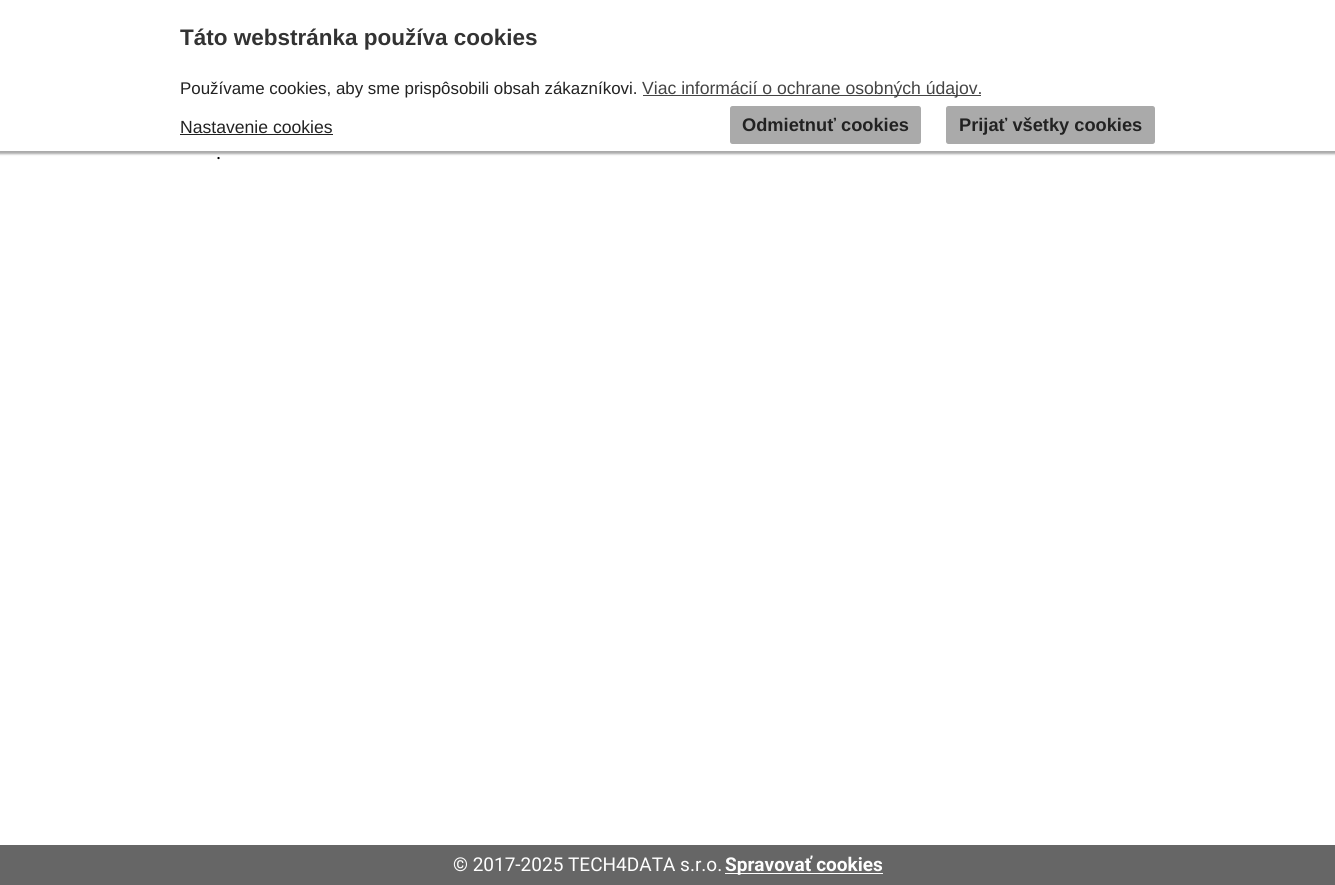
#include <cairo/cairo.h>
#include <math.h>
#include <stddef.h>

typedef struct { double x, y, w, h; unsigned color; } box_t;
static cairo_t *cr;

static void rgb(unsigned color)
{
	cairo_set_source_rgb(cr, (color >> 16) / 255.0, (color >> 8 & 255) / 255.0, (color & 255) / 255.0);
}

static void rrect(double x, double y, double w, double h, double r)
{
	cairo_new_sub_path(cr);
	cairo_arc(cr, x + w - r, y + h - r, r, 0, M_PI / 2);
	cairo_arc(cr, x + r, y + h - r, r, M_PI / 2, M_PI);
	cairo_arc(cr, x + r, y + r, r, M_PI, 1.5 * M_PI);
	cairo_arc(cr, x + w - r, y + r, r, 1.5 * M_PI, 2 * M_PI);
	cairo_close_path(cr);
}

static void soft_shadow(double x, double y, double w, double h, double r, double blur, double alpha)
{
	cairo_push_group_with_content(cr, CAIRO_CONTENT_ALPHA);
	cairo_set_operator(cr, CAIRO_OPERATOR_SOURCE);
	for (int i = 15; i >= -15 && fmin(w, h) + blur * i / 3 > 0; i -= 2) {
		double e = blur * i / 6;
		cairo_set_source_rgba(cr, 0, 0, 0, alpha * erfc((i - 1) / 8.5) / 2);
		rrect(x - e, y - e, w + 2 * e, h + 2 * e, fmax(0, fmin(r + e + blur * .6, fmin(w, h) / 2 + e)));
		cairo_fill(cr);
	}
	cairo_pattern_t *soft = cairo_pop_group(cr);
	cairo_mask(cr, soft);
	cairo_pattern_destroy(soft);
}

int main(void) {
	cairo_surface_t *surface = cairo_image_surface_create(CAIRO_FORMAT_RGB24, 1335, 885);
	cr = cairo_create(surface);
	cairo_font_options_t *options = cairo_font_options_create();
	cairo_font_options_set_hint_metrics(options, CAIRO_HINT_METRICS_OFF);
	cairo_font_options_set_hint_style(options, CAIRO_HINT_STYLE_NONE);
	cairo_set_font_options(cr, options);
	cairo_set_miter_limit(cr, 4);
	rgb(0xffffff);
	cairo_paint(cr);
	rgb(0xaaaaaa);
	soft_shadow(-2, -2, 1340, 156, 0, 1, 1);
	{
		static const box_t items[] = {
			{0, 0, 1335, 151, 0xffffff},
			{643, 95, 338, 1, 0x444444},
			{180, 134, 153, 1, 0x222222},
		};
		for (size_t i = 0; i < sizeof items / sizeof *items; i++) {
			rgb(items[i].color);
			cairo_rectangle(cr, items[i].x, items[i].y, items[i].w, items[i].h);
			cairo_fill(cr);
		}
	}
	rgb(0xaaaaaa);
	rrect(730, 106, 191, 38, 2.5);
	cairo_fill(cr);
	rrect(946, 106, 209, 38, 2.5);
	cairo_fill(cr);
	rgb(0x666666);
	cairo_rectangle(cr, 0, 845, 1335, 40);
	cairo_fill(cr);
	rgb(0xfefefe);
	cairo_rectangle(cr, 725, 873, 158, 1);
	cairo_fill(cr);
	cairo_select_font_face(cr, "Liberation Sans", CAIRO_FONT_SLANT_NORMAL, CAIRO_FONT_WEIGHT_BOLD);
	cairo_set_font_size(cr, 22.5);
	rgb(0x333333);
	cairo_move_to(cr, 180, 45);
	cairo_show_text(cr, "Táto webstránka používa cookies");
	cairo_select_font_face(cr, "Liberation Sans", CAIRO_FONT_SLANT_NORMAL, CAIRO_FONT_WEIGHT_NORMAL);
	cairo_set_font_size(cr, 16.9);
	rgb(0x222222);
	cairo_move_to(cr, 180, 94);
	cairo_show_text(cr, "Používame cookies, aby sme prispôsobili obsah zákazníkovi.");
	cairo_set_font_size(cr, 17.6);
	rgb(0x444444);
	cairo_move_to(cr, 642, 94);
	cairo_show_text(cr, "Viac informácií o ochrane osobných údajov.");
	rgb(0x222222);
	cairo_move_to(cr, 180, 133);
	cairo_show_text(cr, "Nastavenie cookies");
	cairo_select_font_face(cr, "Liberation Sans", CAIRO_FONT_SLANT_NORMAL, CAIRO_FONT_WEIGHT_BOLD);
	cairo_set_font_size(cr, 18.25);
	cairo_move_to(cr, 742, 131);
	cairo_show_text(cr, "Odmietnuť cookies");
	cairo_move_to(cr, 959, 131);
	cairo_show_text(cr, "Prijať všetky cookies");
	cairo_select_font_face(cr, "Roboto", CAIRO_FONT_SLANT_NORMAL, CAIRO_FONT_WEIGHT_NORMAL);
	cairo_set_font_size(cr, 20);
	rgb(0x000000);
	cairo_move_to(cr, 216, 159);
	cairo_show_text(cr, ".");
	cairo_set_font_size(cr, 19);
	rgb(0xfefefe);
	cairo_move_to(cr, 453, 871);
	cairo_show_text(cr, "© 2017-2025 TECH4DATA s.r.o.");
	cairo_select_font_face(cr, "Roboto", CAIRO_FONT_SLANT_NORMAL, CAIRO_FONT_WEIGHT_BOLD);
	cairo_move_to(cr, 725, 871);
	cairo_show_text(cr, "Spravovať cookies");
	cairo_surface_write_to_png(surface, "page.png");
	cairo_font_options_destroy(options);
	cairo_destroy(cr);
	cairo_surface_destroy(surface);
	return 0;
}
